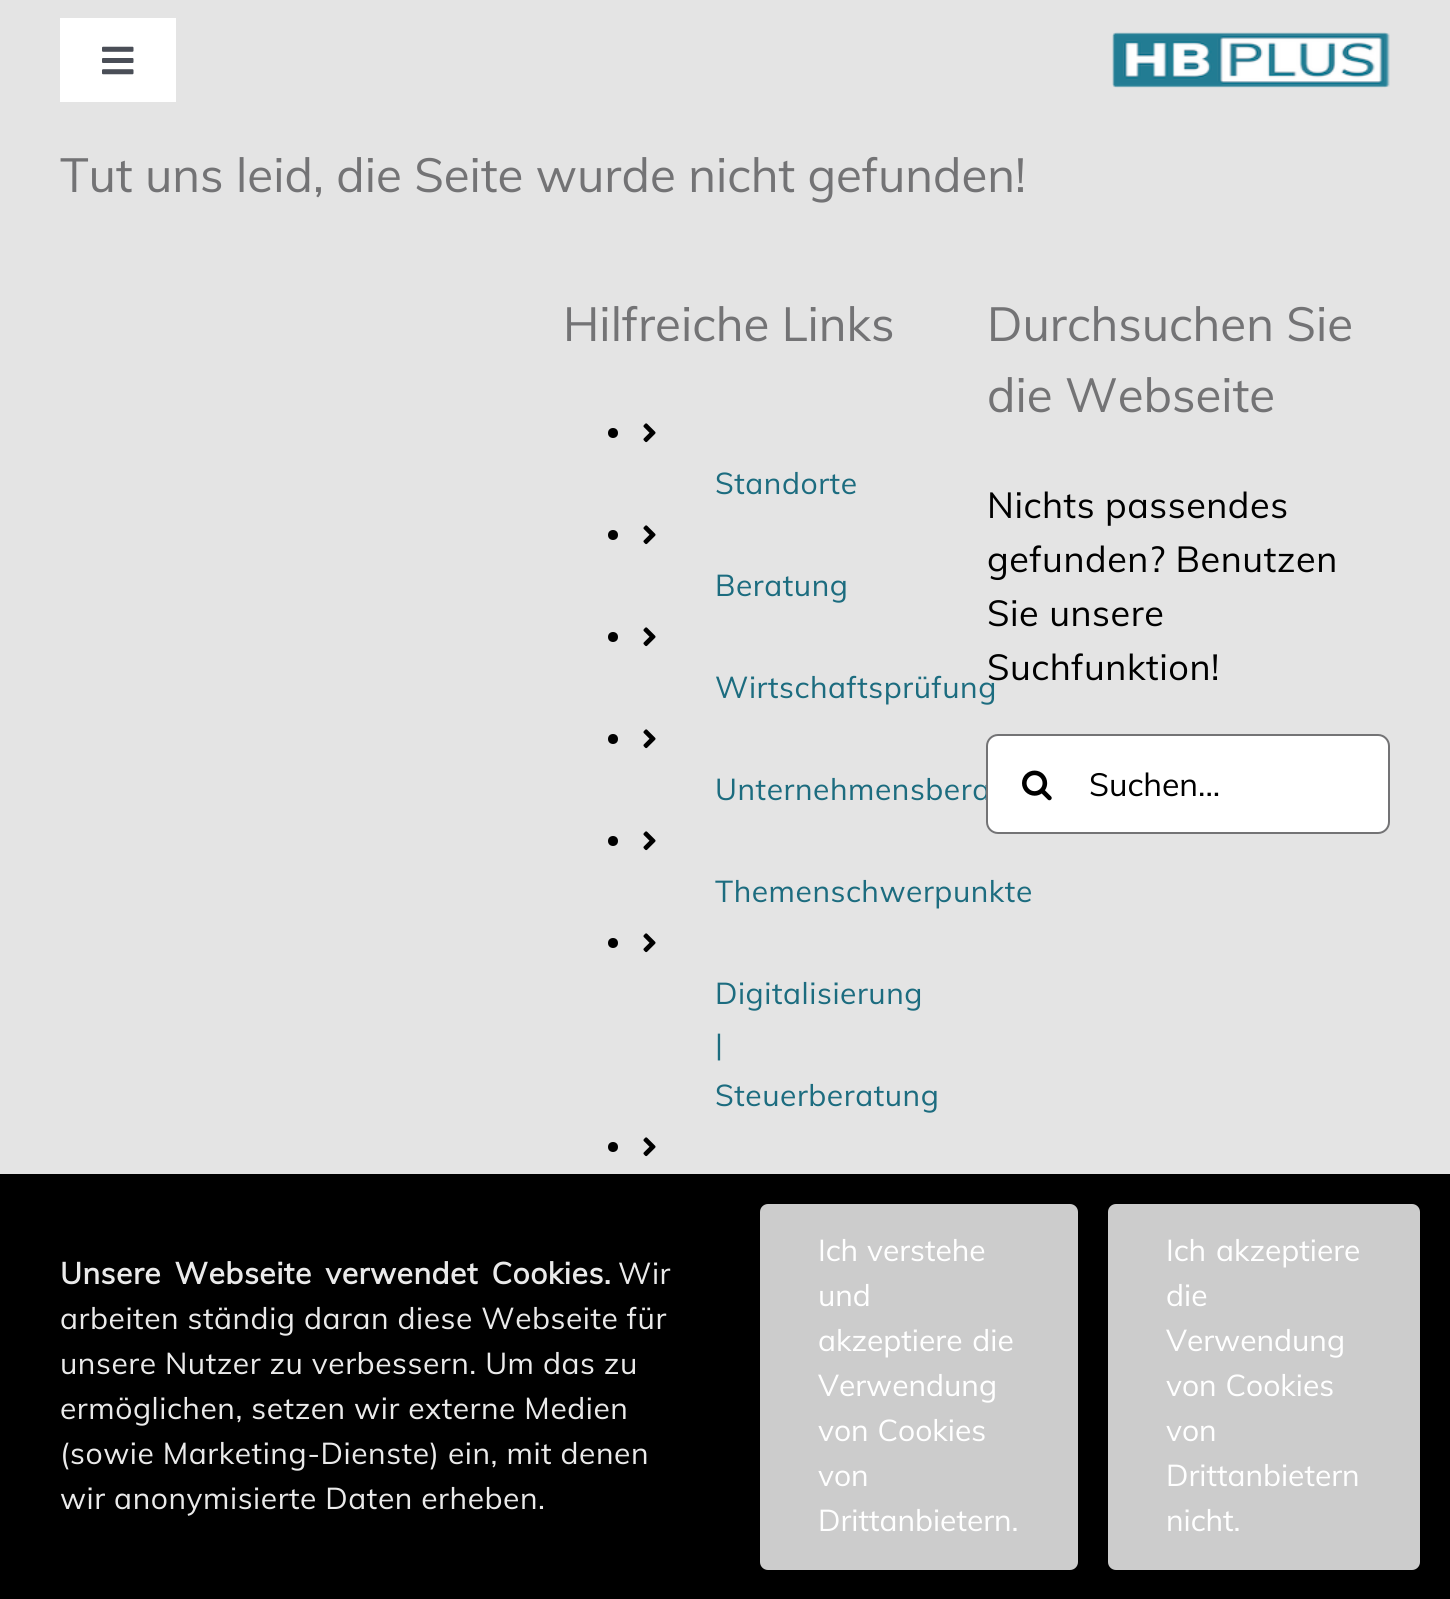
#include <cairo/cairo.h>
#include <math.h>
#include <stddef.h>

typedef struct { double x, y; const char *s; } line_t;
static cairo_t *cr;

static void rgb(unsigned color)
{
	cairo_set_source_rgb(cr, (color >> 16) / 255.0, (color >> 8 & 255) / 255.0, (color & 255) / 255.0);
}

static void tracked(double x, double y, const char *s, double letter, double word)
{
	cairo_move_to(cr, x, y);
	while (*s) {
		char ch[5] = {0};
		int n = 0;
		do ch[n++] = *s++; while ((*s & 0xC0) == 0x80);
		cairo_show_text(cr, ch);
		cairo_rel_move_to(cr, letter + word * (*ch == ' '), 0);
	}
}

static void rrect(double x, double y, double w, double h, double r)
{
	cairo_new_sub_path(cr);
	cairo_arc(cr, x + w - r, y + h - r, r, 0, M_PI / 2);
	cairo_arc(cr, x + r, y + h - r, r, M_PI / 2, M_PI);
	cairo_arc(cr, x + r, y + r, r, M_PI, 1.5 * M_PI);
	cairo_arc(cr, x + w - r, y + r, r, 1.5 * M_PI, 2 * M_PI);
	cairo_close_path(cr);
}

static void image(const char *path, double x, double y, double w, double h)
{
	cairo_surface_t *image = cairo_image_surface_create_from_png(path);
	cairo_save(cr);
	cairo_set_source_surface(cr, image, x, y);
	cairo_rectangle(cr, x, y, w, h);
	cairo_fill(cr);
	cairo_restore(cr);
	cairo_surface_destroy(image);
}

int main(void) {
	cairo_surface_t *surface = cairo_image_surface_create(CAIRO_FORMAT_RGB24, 1450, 1599);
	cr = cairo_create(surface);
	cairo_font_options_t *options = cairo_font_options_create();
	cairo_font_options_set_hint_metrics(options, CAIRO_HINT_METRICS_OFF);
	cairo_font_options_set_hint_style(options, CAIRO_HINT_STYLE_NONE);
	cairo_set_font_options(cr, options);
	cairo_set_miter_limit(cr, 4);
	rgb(0xe4e4e4);
	cairo_paint(cr);
	rgb(0xffffff);
	cairo_rectangle(cr, 60, 18, 116, 84);
	cairo_fill(cr);
	image("img/1.png", 102, 46, 32, 29);
	image("img/2.png", 1112, 32, 278, 56);
	rgb(0x000000);
	cairo_arc(cr, 613, 433, 5, 0, 2 * M_PI);
	cairo_fill(cr);
	image("img/3.png", 643, 423, 13, 20);
	cairo_arc(cr, 613, 535, 5, 0, 2 * M_PI);
	cairo_fill(cr);
	image("img/3.png", 643, 525, 13, 20);
	cairo_arc(cr, 613, 637, 5, 0, 2 * M_PI);
	cairo_fill(cr);
	image("img/3.png", 643, 627, 13, 20);
	cairo_arc(cr, 613, 739, 5, 0, 2 * M_PI);
	cairo_fill(cr);
	image("img/3.png", 643, 729, 13, 20);
	cairo_arc(cr, 613, 841, 5, 0, 2 * M_PI);
	cairo_fill(cr);
	image("img/3.png", 643, 831, 13, 20);
	cairo_arc(cr, 613, 943, 5, 0, 2 * M_PI);
	cairo_fill(cr);
	image("img/3.png", 643, 933, 13, 20);
	cairo_arc(cr, 613, 1147, 5, 0, 2 * M_PI);
	cairo_fill(cr);
	image("img/3.png", 643, 1137, 13, 20);
	cairo_rectangle(cr, 0, 1174, 1450, 425);
	cairo_fill(cr);
	rgb(0xcccccc);
	rrect(760, 1204, 318, 366, 8);
	cairo_fill(cr);
	rrect(1108, 1204, 312, 366, 8);
	cairo_fill(cr);
	cairo_select_font_face(cr, "Muli", CAIRO_FONT_SLANT_NORMAL, CAIRO_FONT_WEIGHT_NORMAL);
	cairo_set_font_size(cr, 47.45);
	rgb(0x737375);
	cairo_move_to(cr, 60, 192);
	cairo_show_text(cr, "Tut uns leid, die Seite wurde nicht gefunden!");
	cairo_move_to(cr, 563, 341);
	cairo_show_text(cr, "Hilfreiche Links");
	cairo_set_font_size(cr, 30);
	rgb(0x1c6c7f);
	{
		static const line_t items[] = {
			{715, 494, "Standorte"},
			{715, 596, "Beratung"},
			{715, 698, "Wirtschaftsprüfung"},
			{715, 800, "Unternehmensbera"},
			{715, 902, "Themenschwerpunkte"},
			{715, 1004, "Digitalisierung"},
			{715, 1055, "|"},
			{715, 1106, "Steuerberatung"},
		};
		for (size_t i = 0; i < sizeof items / sizeof *items; i++) {
			tracked(items[i].x, items[i].y, items[i].s, 0.55, 0);
		}
	}
	cairo_set_font_size(cr, 47.45);
	rgb(0x737375);
	cairo_move_to(cr, 987, 341);
	cairo_show_text(cr, "Durchsuchen Sie");
	cairo_move_to(cr, 987, 412);
	cairo_show_text(cr, "die Webseite");
	cairo_set_font_size(cr, 36);
	rgb(0x000000);
	{
		static const line_t items[] = {
			{987, 518, "Nichts passendes"},
			{987, 572, "gefunden? Benutzen"},
			{987, 626, "Sie unsere"},
			{987, 680, "Suchfunktion!"},
		};
		for (size_t i = 0; i < sizeof items / sizeof *items; i++) {
			tracked(items[i].x, items[i].y, items[i].s, 0.55, 0);
		}
	}
	rgb(0xffffff);
	rrect(987, 735, 402, 98, 11);
	cairo_fill_preserve(cr);
	rgb(0x737375);
	cairo_stroke(cr);
	image("img/4.png", 1022, 770, 30, 31);
	cairo_set_font_size(cr, 32);
	rgb(0x000000);
	cairo_move_to(cr, 1089, 796);
	cairo_show_text(cr, "Suchen...");
	cairo_select_font_face(cr, "Muli", CAIRO_FONT_SLANT_NORMAL, CAIRO_FONT_WEIGHT_BOLD);
	cairo_set_font_size(cr, 30);
	rgb(0xeaeaea);
	tracked(60, 1284, "Unsere Webseite verwendet Cookies.", 0.55, 5);
	cairo_select_font_face(cr, "Muli", CAIRO_FONT_SLANT_NORMAL, CAIRO_FONT_WEIGHT_NORMAL);
	{
		static const line_t items[] = {
			{618, 1284, "Wir"},
			{60, 1329, "arbeiten ständig daran diese Webseite für"},
			{60, 1374, "unsere Nutzer zu verbessern. Um das zu"},
			{60, 1419, "ermöglichen, setzen wir externe Medien"},
			{60, 1464, "(sowie Marketing-Dienste) ein, mit denen"},
			{60, 1509, "wir anonymisierte Daten erheben."},
		};
		for (size_t i = 0; i < sizeof items / sizeof *items; i++) {
			tracked(items[i].x, items[i].y, items[i].s, 0.55, 0);
		}
	}
	rgb(0xffffff);
	tracked(818, 1261, "Ich verstehe", 0, 1);
	cairo_move_to(cr, 818, 1306);
	cairo_show_text(cr, "und");
	tracked(818, 1351, "akzeptiere die", 0, 2);
	cairo_move_to(cr, 818, 1396);
	cairo_show_text(cr, "Verwendung");
	tracked(818, 1441, "von Cookies", 0, 1);
	cairo_move_to(cr, 818, 1486);
	cairo_show_text(cr, "von");
	cairo_move_to(cr, 818, 1531);
	cairo_show_text(cr, "Drittanbietern.");
	tracked(1166, 1261, "Ich akzeptiere", 0, 2);
	cairo_move_to(cr, 1166, 1306);
	cairo_show_text(cr, "die");
	cairo_move_to(cr, 1166, 1351);
	cairo_show_text(cr, "Verwendung");
	tracked(1166, 1396, "von Cookies", 0, 1);
	{
		static const line_t items[] = {
			{1166, 1441, "von"},
			{1166, 1486, "Drittanbietern"},
			{1166, 1531, "nicht."},
		};
		for (size_t i = 0; i < sizeof items / sizeof *items; i++) {
			cairo_move_to(cr, items[i].x, items[i].y);
			cairo_show_text(cr, items[i].s);
		}
	}
	cairo_surface_write_to_png(surface, "page.png");
	cairo_font_options_destroy(options);
	cairo_destroy(cr);
	cairo_surface_destroy(surface);
	return 0;
}
